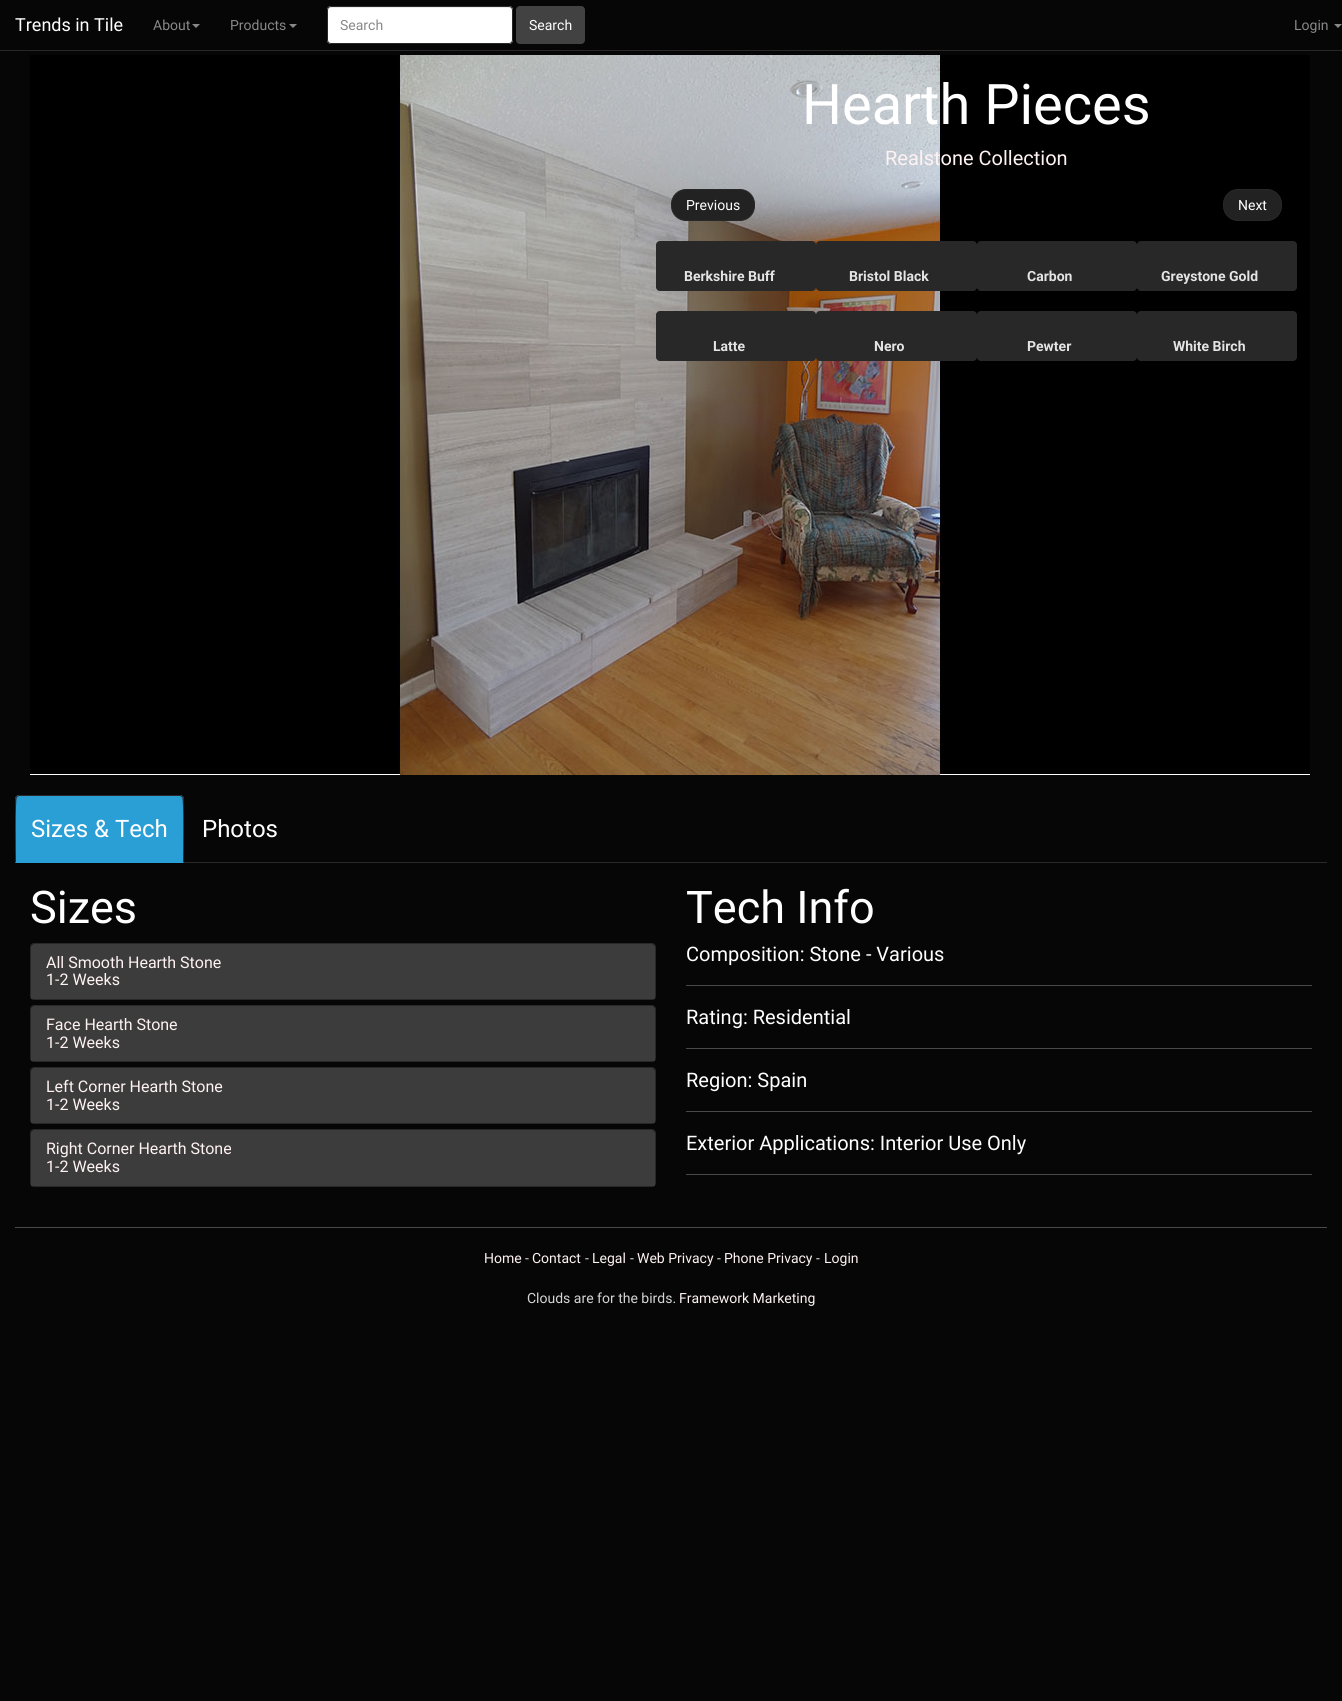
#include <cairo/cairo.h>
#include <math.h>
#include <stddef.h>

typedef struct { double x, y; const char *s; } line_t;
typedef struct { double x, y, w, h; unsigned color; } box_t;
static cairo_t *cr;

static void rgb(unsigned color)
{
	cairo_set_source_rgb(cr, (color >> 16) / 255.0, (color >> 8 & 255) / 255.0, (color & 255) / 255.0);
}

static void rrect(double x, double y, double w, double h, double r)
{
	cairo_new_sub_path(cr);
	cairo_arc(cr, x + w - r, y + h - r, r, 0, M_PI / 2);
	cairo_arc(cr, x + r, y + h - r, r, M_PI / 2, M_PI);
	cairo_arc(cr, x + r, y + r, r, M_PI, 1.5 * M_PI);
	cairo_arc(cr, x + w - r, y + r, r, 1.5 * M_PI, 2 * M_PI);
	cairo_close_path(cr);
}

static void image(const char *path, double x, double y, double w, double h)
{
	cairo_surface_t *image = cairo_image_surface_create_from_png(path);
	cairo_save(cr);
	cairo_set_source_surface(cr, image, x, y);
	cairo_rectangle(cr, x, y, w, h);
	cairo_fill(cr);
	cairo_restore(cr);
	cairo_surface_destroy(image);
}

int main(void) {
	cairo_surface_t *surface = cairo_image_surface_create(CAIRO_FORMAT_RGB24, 1342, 1701);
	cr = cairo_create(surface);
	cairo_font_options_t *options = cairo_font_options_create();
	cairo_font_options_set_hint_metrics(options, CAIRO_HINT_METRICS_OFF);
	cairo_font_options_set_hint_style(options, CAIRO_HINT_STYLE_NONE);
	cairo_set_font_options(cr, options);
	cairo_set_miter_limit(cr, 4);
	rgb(0x060606);
	cairo_paint(cr);
	rgb(0x282828);
	cairo_rectangle(cr, 0, 50, 1342, 1);
	cairo_fill(cr);
	rgb(0x888888);
	cairo_new_path(cr);
	cairo_move_to(cr, 192, 24);
	cairo_line_to(cr, 200, 24);
	cairo_line_to(cr, 196, 28);
	cairo_close_path(cr);
	cairo_fill(cr);
	cairo_new_path(cr);
	cairo_move_to(cr, 289, 24);
	cairo_line_to(cr, 297, 24);
	cairo_line_to(cr, 293, 28);
	cairo_close_path(cr);
	cairo_fill(cr);
	rgb(0xffffff);
	rrect(327, 6, 186, 38, 4);
	cairo_fill(cr);
	rgb(0xececec);
	cairo_new_path(cr);
	cairo_move_to(cr, 331, 8);
	cairo_line_to(cr, 510, 8);
	cairo_line_to(cr, 511, 9);
	cairo_line_to(cr, 512, 11);
	cairo_curve_to(cr, 512, 9, 511, 7, 509, 7);
	cairo_line_to(cr, 330, 7);
	cairo_curve_to(cr, 328, 8, 328, 9, 328, 11);
	cairo_curve_to(cr, 328, 9, 329, 8, 331, 8);
	cairo_close_path(cr);
	cairo_fill(cr);
	rrect(327.5, 6.5, 185, 37, 3.5);
	rgb(0x282828);
	cairo_set_line_width(cr, 1);
	cairo_stroke(cr);
	rgb(0x424242);
	rrect(516.5, 6.5, 68, 37, 3.5);
	cairo_fill_preserve(cr);
	cairo_stroke(cr);
	rgb(0x888888);
	cairo_new_path(cr);
	cairo_move_to(cr, 1334, 24);
	cairo_line_to(cr, 1342, 24);
	cairo_line_to(cr, 1338, 28);
	cairo_close_path(cr);
	cairo_fill(cr);
	image("img/1.png", 30, 55, 1280, 720);
	rgb(0x222222);
	rrect(671.5, 189.5, 83, 31, 14.5);
	cairo_fill_preserve(cr);
	rgb(0x282828);
	cairo_stroke(cr);
	rgb(0x222222);
	rrect(1223.5, 189.5, 58, 31, 14.5);
	cairo_fill_preserve(cr);
	rgb(0x282828);
	cairo_stroke(cr);
	rrect(656.5, 241.5, 159, 49, 3.5);
	cairo_fill_preserve(cr);
	cairo_stroke(cr);
	rrect(816.5, 241.5, 160, 49, 3.5);
	cairo_fill_preserve(cr);
	cairo_stroke(cr);
	rrect(977.5, 241.5, 159, 49, 3.5);
	cairo_fill_preserve(cr);
	cairo_stroke(cr);
	rrect(1137.5, 241.5, 159, 49, 3.5);
	cairo_fill_preserve(cr);
	cairo_stroke(cr);
	rrect(656.5, 311.5, 159, 49, 3.5);
	cairo_fill_preserve(cr);
	cairo_stroke(cr);
	rrect(816.5, 311.5, 160, 49, 3.5);
	cairo_fill_preserve(cr);
	cairo_stroke(cr);
	rrect(977.5, 311.5, 159, 49, 3.5);
	cairo_fill_preserve(cr);
	cairo_stroke(cr);
	rrect(1137.5, 311.5, 159, 49, 3.5);
	cairo_fill_preserve(cr);
	cairo_stroke(cr);
	cairo_rectangle(cr, 184, 862, 1143, 1);
	cairo_fill(cr);
	rgb(0x2a9fd6);
	cairo_new_path(cr);
	cairo_move_to(cr, 19, 795);
	cairo_line_to(cr, 180, 795);
	cairo_curve_to(cr, 182, 795, 184, 797, 184, 799);
	cairo_line_to(cr, 184, 863);
	cairo_line_to(cr, 15, 863);
	cairo_line_to(cr, 15, 799);
	cairo_curve_to(cr, 15, 797, 17, 795, 19, 795);
	cairo_close_path(cr);
	cairo_fill(cr);
	rgb(0x282828);
	cairo_new_path(cr);
	cairo_move_to(cr, 19, 795);
	cairo_line_to(cr, 16, 796);
	cairo_line_to(cr, 17, 797);
	cairo_line_to(cr, 19, 796);
	cairo_line_to(cr, 180, 796);
	cairo_line_to(cr, 182, 797);
	cairo_line_to(cr, 183, 796);
	cairo_line_to(cr, 180, 795);
	cairo_close_path(cr);
	cairo_fill(cr);
	cairo_new_path(cr);
	cairo_move_to(cr, 184, 863);
	cairo_line_to(cr, 184, 799);
	cairo_line_to(cr, 183, 796);
	cairo_line_to(cr, 182, 797);
	cairo_curve_to(cr, 184, 798, 183, 855, 183, 862);
	cairo_close_path(cr);
	cairo_fill(cr);
	cairo_new_path(cr);
	cairo_move_to(cr, 15, 863);
	cairo_line_to(cr, 16, 862);
	cairo_curve_to(cr, 16, 855, 15, 798, 17, 797);
	cairo_line_to(cr, 16, 796);
	cairo_line_to(cr, 15, 799);
	cairo_close_path(cr);
	cairo_fill(cr);
	rrect(30.5, 943.5, 625, 56, 3.5);
	cairo_stroke(cr);
	rgb(0x3c3c3c);
	cairo_new_path(cr);
	cairo_move_to(cr, 34, 944);
	cairo_line_to(cr, 652, 944);
	cairo_curve_to(cr, 653.5, 944, 655, 945.5, 655, 947);
	cairo_line_to(cr, 655, 999);
	cairo_line_to(cr, 31, 999);
	cairo_line_to(cr, 31, 947);
	cairo_curve_to(cr, 31, 945.5, 32.5, 944, 34, 944);
	cairo_close_path(cr);
	cairo_fill(cr);
	rrect(30.5, 1005.5, 625, 56, 3.5);
	rgb(0x282828);
	cairo_stroke(cr);
	rgb(0x3c3c3c);
	cairo_new_path(cr);
	cairo_move_to(cr, 34, 1006);
	cairo_line_to(cr, 652, 1006);
	cairo_curve_to(cr, 653.5, 1006, 655, 1007.5, 655, 1009);
	cairo_line_to(cr, 655, 1061);
	cairo_line_to(cr, 31, 1061);
	cairo_line_to(cr, 31, 1009);
	cairo_curve_to(cr, 31, 1007.5, 32.5, 1006, 34, 1006);
	cairo_close_path(cr);
	cairo_fill(cr);
	rrect(30.5, 1067.5, 625, 56, 3.5);
	rgb(0x282828);
	cairo_stroke(cr);
	rgb(0x3c3c3c);
	cairo_new_path(cr);
	cairo_move_to(cr, 34, 1068);
	cairo_line_to(cr, 652, 1068);
	cairo_curve_to(cr, 653.5, 1068, 655, 1069.5, 655, 1071);
	cairo_line_to(cr, 655, 1123);
	cairo_line_to(cr, 31, 1123);
	cairo_line_to(cr, 31, 1071);
	cairo_curve_to(cr, 31, 1069.5, 32.5, 1068, 34, 1068);
	cairo_close_path(cr);
	cairo_fill(cr);
	rrect(30.5, 1129.5, 625, 57, 3.5);
	rgb(0x282828);
	cairo_stroke(cr);
	rgb(0x3c3c3c);
	cairo_new_path(cr);
	cairo_move_to(cr, 34, 1130);
	cairo_line_to(cr, 652, 1130);
	cairo_curve_to(cr, 653.5, 1130, 655, 1131.5, 655, 1133);
	cairo_line_to(cr, 655, 1186);
	cairo_line_to(cr, 31, 1186);
	cairo_line_to(cr, 31, 1133);
	cairo_curve_to(cr, 31, 1131.5, 32.5, 1130, 34, 1130);
	cairo_close_path(cr);
	cairo_fill(cr);
	{
		static const box_t items[] = {
			{686, 985, 626, 1, 0x494949},
			{686, 1048, 626, 1, 0x494949},
			{686, 1111, 626, 1, 0x494949},
			{686, 1174, 626, 1, 0x494949},
			{15, 1227, 1312, 1, 0x494949},
		};
		for (size_t i = 0; i < sizeof items / sizeof *items; i++) {
			rgb(items[i].color);
			cairo_rectangle(cr, items[i].x, items[i].y, items[i].w, items[i].h);
			cairo_fill(cr);
		}
	}
	cairo_select_font_face(cr, "Roboto", CAIRO_FONT_SLANT_NORMAL, CAIRO_FONT_WEIGHT_NORMAL);
	cairo_set_font_size(cr, 18);
	rgb(0xffffff);
	cairo_move_to(cr, 15, 31);
	cairo_show_text(cr, "Trends in Tile");
	cairo_set_font_size(cr, 14);
	rgb(0x888888);
	{
		static const line_t items[] = {
			{153, 30, "About"},
			{230, 30, "Products"},
			{340, 30, "Search"},
		};
		for (size_t i = 0; i < sizeof items / sizeof *items; i++) {
			cairo_move_to(cr, items[i].x, items[i].y);
			cairo_show_text(cr, items[i].s);
		}
	}
	rgb(0xffffff);
	cairo_move_to(cr, 529, 30);
	cairo_show_text(cr, "Search");
	rgb(0x888888);
	cairo_move_to(cr, 1294, 30);
	cairo_show_text(cr, "Login");
	cairo_set_font_size(cr, 56);
	rgb(0xffffff);
	cairo_move_to(cr, 802, 124);
	cairo_show_text(cr, "Hearth Pieces");
	cairo_set_font_size(cr, 20);
	rgb(0xfff2f2);
	cairo_move_to(cr, 885, 165);
	cairo_show_text(cr, "Realstone Collection");
	cairo_set_font_size(cr, 14);
	rgb(0xffffff);
	cairo_move_to(cr, 686, 210);
	cairo_show_text(cr, "Previous");
	cairo_move_to(cr, 1238, 210);
	cairo_show_text(cr, "Next");
	cairo_select_font_face(cr, "Roboto", CAIRO_FONT_SLANT_NORMAL, CAIRO_FONT_WEIGHT_BOLD);
	rgb(0xe4e4e4);
	{
		static const line_t items[] = {
			{684, 281, "Berkshire Buff"},
			{849, 281, "Bristol Black"},
			{1027, 281, "Carbon"},
			{1161, 281, "Greystone Gold"},
			{713, 351, "Latte"},
			{874, 351, "Nero"},
			{1027, 351, "Pewter"},
			{1173, 351, "White Birch"},
		};
		for (size_t i = 0; i < sizeof items / sizeof *items; i++) {
			cairo_move_to(cr, items[i].x, items[i].y);
			cairo_show_text(cr, items[i].s);
		}
	}
	cairo_select_font_face(cr, "Roboto", CAIRO_FONT_SLANT_NORMAL, CAIRO_FONT_WEIGHT_NORMAL);
	cairo_set_font_size(cr, 24);
	rgb(0xffffff);
	cairo_move_to(cr, 31, 837);
	cairo_show_text(cr, "Sizes & Tech");
	cairo_move_to(cr, 202, 837);
	cairo_show_text(cr, "Photos");
	cairo_set_font_size(cr, 45);
	cairo_move_to(cr, 30, 923);
	cairo_show_text(cr, "Sizes");
	cairo_set_font_size(cr, 16);
	rgb(0xfff2f2);
	{
		static const line_t items[] = {
			{46, 968, "All Smooth Hearth Stone"},
			{46, 985, "1-2 Weeks"},
			{46, 1030, "Face Hearth Stone"},
			{46, 1048, "1-2 Weeks"},
			{46, 1092, "Left Corner Hearth Stone"},
			{46, 1110, "1-2 Weeks"},
			{46, 1154, "Right Corner Hearth Stone"},
			{46, 1172, "1-2 Weeks"},
		};
		for (size_t i = 0; i < sizeof items / sizeof *items; i++) {
			cairo_move_to(cr, items[i].x, items[i].y);
			cairo_show_text(cr, items[i].s);
		}
	}
	cairo_set_font_size(cr, 45);
	rgb(0xffffff);
	cairo_move_to(cr, 686, 923);
	cairo_show_text(cr, "Tech Info");
	cairo_set_font_size(cr, 20);
	{
		static const line_t items[] = {
			{686, 961, "Composition: Stone - Various"},
			{686, 1024, "Rating: Residential"},
			{686, 1087, "Region: Spain"},
			{686, 1150, "Exterior Applications: Interior Use Only"},
		};
		for (size_t i = 0; i < sizeof items / sizeof *items; i++) {
			cairo_move_to(cr, items[i].x, items[i].y);
			cairo_show_text(cr, items[i].s);
		}
	}
	cairo_set_font_size(cr, 14);
	rgb(0xfff2f2);
	cairo_move_to(cr, 484, 1263);
	cairo_show_text(cr, "Home");
	rgb(0xe4e4e4);
	cairo_move_to(cr, 525, 1263);
	cairo_show_text(cr, "-");
	rgb(0xfff2f2);
	cairo_move_to(cr, 532, 1263);
	cairo_show_text(cr, "Contact");
	rgb(0xe4e4e4);
	cairo_move_to(cr, 585, 1263);
	cairo_show_text(cr, "-");
	rgb(0xfff2f2);
	cairo_move_to(cr, 592, 1263);
	cairo_show_text(cr, "Legal");
	rgb(0xe4e4e4);
	cairo_move_to(cr, 630, 1263);
	cairo_show_text(cr, "-");
	rgb(0xfff2f2);
	cairo_move_to(cr, 637, 1263);
	cairo_show_text(cr, "Web Privacy");
	rgb(0xe4e4e4);
	cairo_move_to(cr, 717, 1263);
	cairo_show_text(cr, "-");
	rgb(0xfff2f2);
	cairo_move_to(cr, 724, 1263);
	cairo_show_text(cr, "Phone Privacy");
	rgb(0xe4e4e4);
	cairo_move_to(cr, 816, 1263);
	cairo_show_text(cr, "-");
	rgb(0xfff2f2);
	cairo_move_to(cr, 824, 1263);
	cairo_show_text(cr, "Login");
	rgb(0xd5d5d5);
	cairo_move_to(cr, 527, 1303);
	cairo_show_text(cr, "Clouds are for the birds.");
	rgb(0xfff2f2);
	cairo_move_to(cr, 679, 1303);
	cairo_show_text(cr, "Framework Marketing");
	cairo_surface_write_to_png(surface, "page.png");
	cairo_font_options_destroy(options);
	cairo_destroy(cr);
	cairo_surface_destroy(surface);
	return 0;
}
